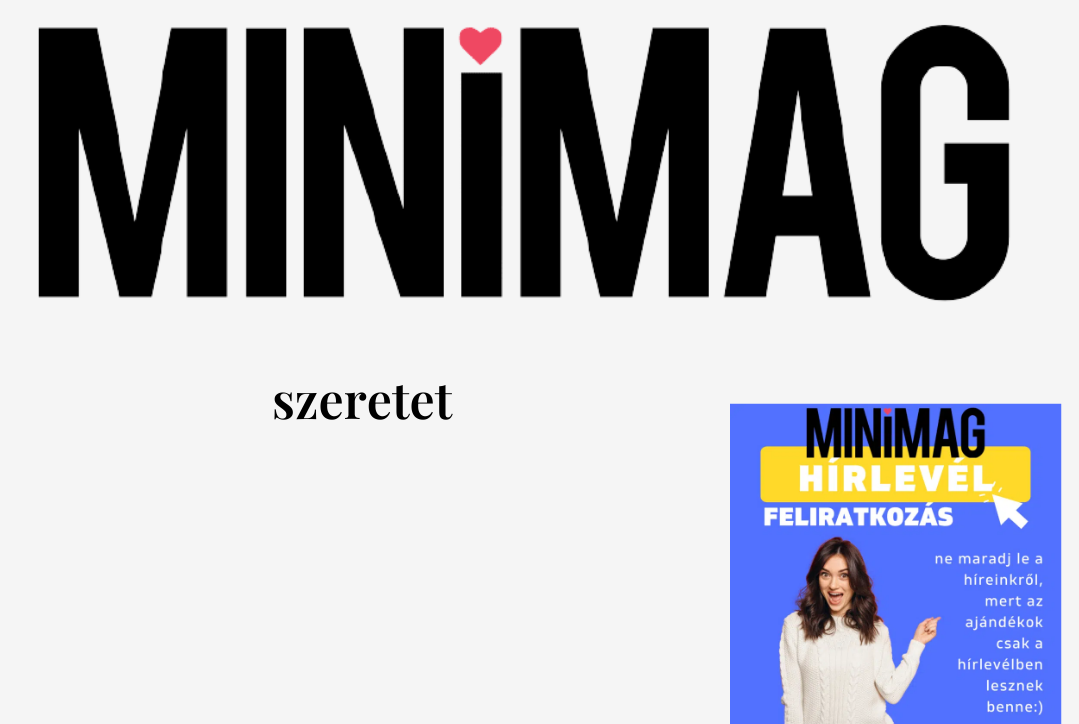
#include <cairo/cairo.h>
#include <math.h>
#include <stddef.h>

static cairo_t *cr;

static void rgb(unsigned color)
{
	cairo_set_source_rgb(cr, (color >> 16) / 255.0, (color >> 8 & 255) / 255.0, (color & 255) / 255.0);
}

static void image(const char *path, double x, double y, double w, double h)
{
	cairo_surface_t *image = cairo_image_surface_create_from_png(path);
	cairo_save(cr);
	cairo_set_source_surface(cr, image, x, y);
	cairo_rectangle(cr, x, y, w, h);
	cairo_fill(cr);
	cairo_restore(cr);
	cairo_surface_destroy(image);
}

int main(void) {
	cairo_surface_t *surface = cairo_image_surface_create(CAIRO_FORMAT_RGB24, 1079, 724);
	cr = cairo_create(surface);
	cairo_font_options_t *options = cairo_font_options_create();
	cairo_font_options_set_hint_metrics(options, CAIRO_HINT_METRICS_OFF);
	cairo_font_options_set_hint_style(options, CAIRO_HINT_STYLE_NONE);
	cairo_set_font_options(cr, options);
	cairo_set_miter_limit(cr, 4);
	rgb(0xf5f5f5);
	cairo_paint(cr);
	image("img/1.png", 38, 24, 973, 278);
	image("img/2.png", 730, 403, 332, 321);
	cairo_select_font_face(cr, "Playfair Display SemiBold", CAIRO_FONT_SLANT_NORMAL, CAIRO_FONT_WEIGHT_NORMAL);
	cairo_set_font_size(cr, 50);
	rgb(0x000000);
	cairo_move_to(cr, 272, 419);
	cairo_show_text(cr, "szeretet");
	cairo_surface_write_to_png(surface, "page.png");
	cairo_font_options_destroy(options);
	cairo_destroy(cr);
	cairo_surface_destroy(surface);
	return 0;
}
